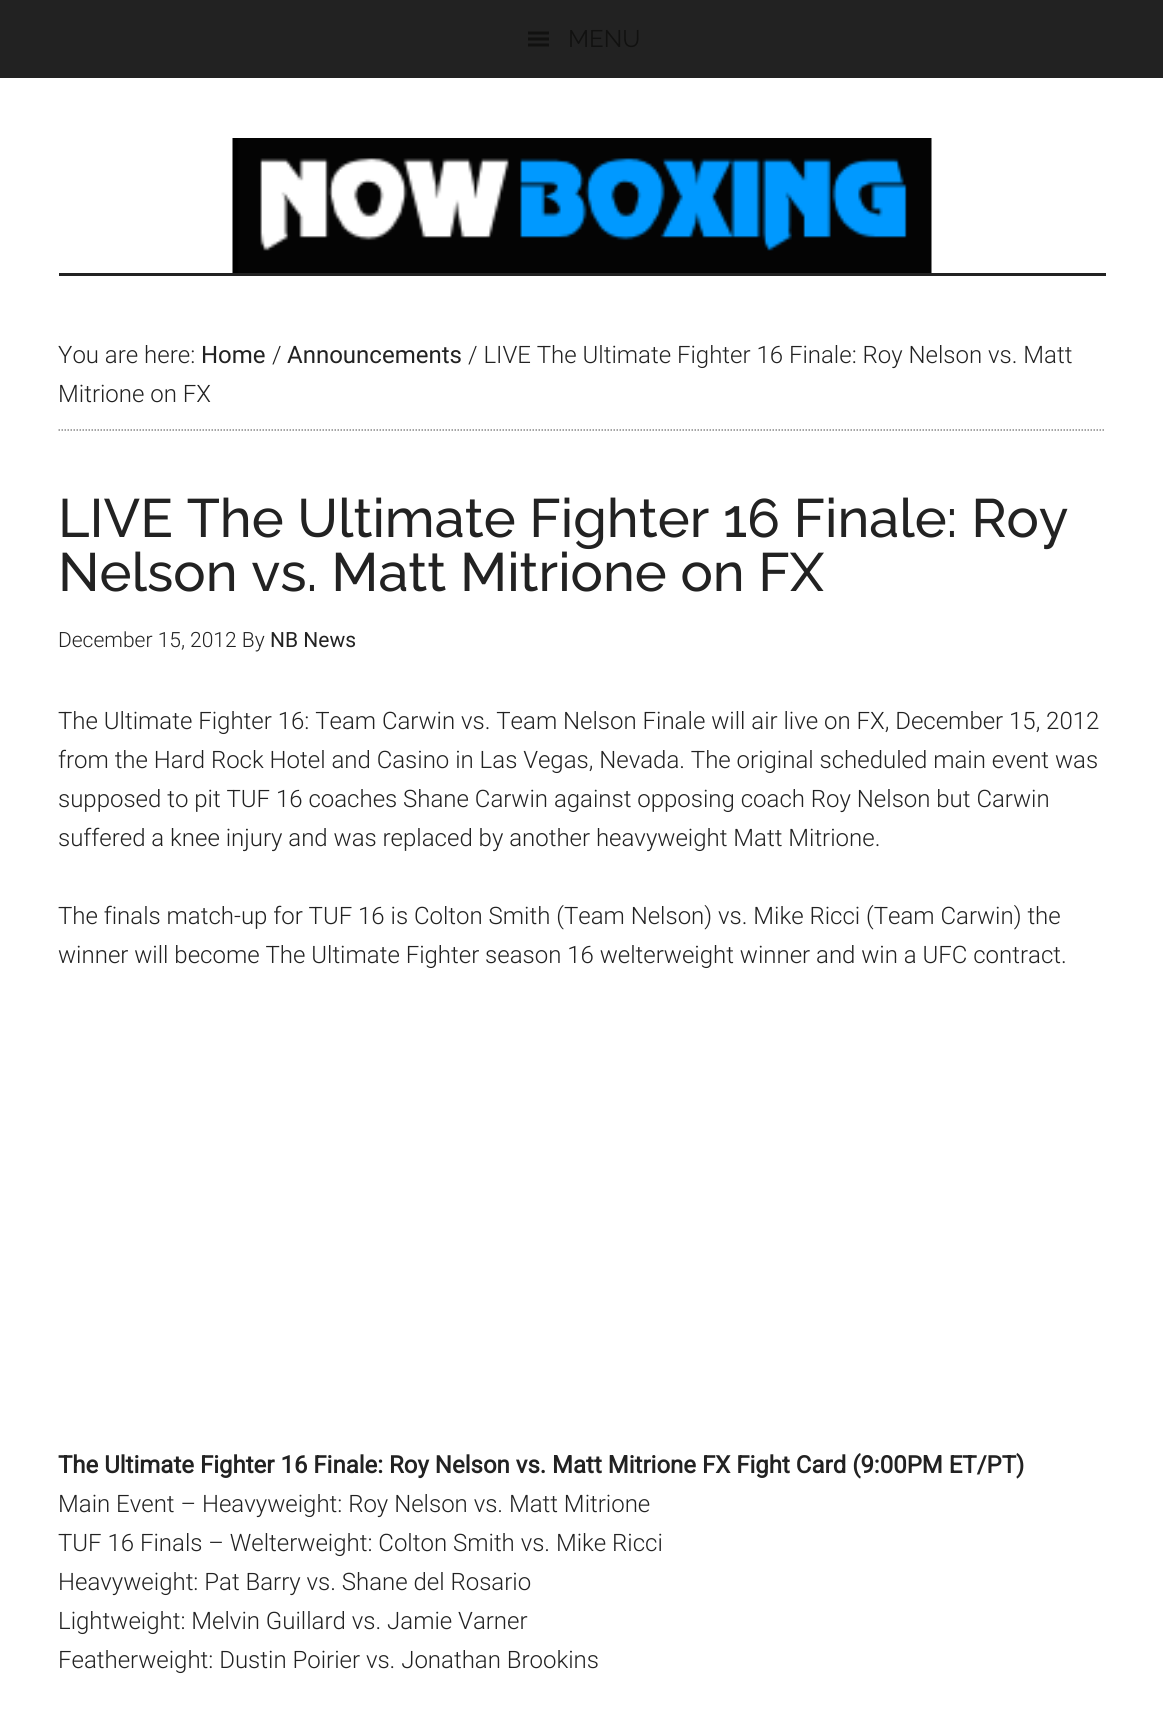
#include <cairo/cairo.h>
#include <math.h>
#include <stddef.h>

typedef struct { double x, y; const char *s; } line_t;
static cairo_t *cr;

static void rgb(unsigned color)
{
	cairo_set_source_rgb(cr, (color >> 16) / 255.0, (color >> 8 & 255) / 255.0, (color & 255) / 255.0);
}

static void image(const char *path, double x, double y, double w, double h)
{
	cairo_surface_t *image = cairo_image_surface_create_from_png(path);
	cairo_save(cr);
	cairo_set_source_surface(cr, image, x, y);
	cairo_rectangle(cr, x, y, w, h);
	cairo_fill(cr);
	cairo_restore(cr);
	cairo_surface_destroy(image);
}

int main(void) {
	cairo_surface_t *surface = cairo_image_surface_create(CAIRO_FORMAT_RGB24, 1163, 1716);
	cr = cairo_create(surface);
	cairo_font_options_t *options = cairo_font_options_create();
	cairo_font_options_set_hint_metrics(options, CAIRO_HINT_METRICS_OFF);
	cairo_font_options_set_hint_style(options, CAIRO_HINT_STYLE_NONE);
	cairo_set_font_options(cr, options);
	cairo_set_miter_limit(cr, 4);
	rgb(0xffffff);
	cairo_paint(cr);
	rgb(0x222222);
	cairo_rectangle(cr, 0, 0, 1163, 78);
	cairo_fill(cr);
	image("img/1.png", 528, 31, 21, 16);
	cairo_rectangle(cr, 59, 273, 1047, 3);
	cairo_fill(cr);
	image("img/2.png", 232, 138, 700, 135);
	cairo_new_path(cr);
	cairo_move_to(cr, 58.5, 430);
	cairo_line_to(cr, 1105.5, 430);
	rgb(0x888888);
	cairo_set_line_width(cr, 1.5);
	cairo_set_dash(cr, (double[]){1.5, 1.5}, 2, 0);
	cairo_stroke(cr);
	cairo_select_font_face(cr, "Raleway", CAIRO_FONT_SLANT_NORMAL, CAIRO_FONT_WEIGHT_NORMAL);
	cairo_set_font_size(cr, 24);
	rgb(0x111110);
	cairo_move_to(cr, 568, 47);
	cairo_show_text(cr, "MENU");
	cairo_select_font_face(cr, "Roboto Light", CAIRO_FONT_SLANT_NORMAL, CAIRO_FONT_WEIGHT_NORMAL);
	rgb(0x222222);
	cairo_move_to(cr, 58, 363);
	cairo_show_text(cr, "You are here:");
	cairo_select_font_face(cr, "Roboto", CAIRO_FONT_SLANT_NORMAL, CAIRO_FONT_WEIGHT_NORMAL);
	cairo_move_to(cr, 201, 363);
	cairo_show_text(cr, "Home");
	cairo_select_font_face(cr, "Roboto Light", CAIRO_FONT_SLANT_NORMAL, CAIRO_FONT_WEIGHT_NORMAL);
	cairo_move_to(cr, 272, 363);
	cairo_show_text(cr, "/");
	cairo_select_font_face(cr, "Roboto", CAIRO_FONT_SLANT_NORMAL, CAIRO_FONT_WEIGHT_NORMAL);
	cairo_move_to(cr, 287, 363);
	cairo_show_text(cr, "Announcements");
	cairo_select_font_face(cr, "Roboto Light", CAIRO_FONT_SLANT_NORMAL, CAIRO_FONT_WEIGHT_NORMAL);
	cairo_move_to(cr, 468, 363);
	cairo_show_text(cr, "/ LIVE The Ultimate Fighter 16 Finale: Roy Nelson vs. Matt");
	cairo_move_to(cr, 58, 402);
	cairo_show_text(cr, "Mitrione on FX");
	cairo_select_font_face(cr, "Raleway Medium", CAIRO_FONT_SLANT_NORMAL, CAIRO_FONT_WEIGHT_NORMAL);
	cairo_set_font_size(cr, 54);
	cairo_move_to(cr, 58, 537);
	cairo_show_text(cr, "LIVE The Ultimate Fighter 16 Finale: Roy");
	cairo_move_to(cr, 58, 591);
	cairo_show_text(cr, "Nelson vs. Matt Mitrione on FX");
	cairo_select_font_face(cr, "Roboto Light", CAIRO_FONT_SLANT_NORMAL, CAIRO_FONT_WEIGHT_NORMAL);
	cairo_set_font_size(cr, 21);
	cairo_move_to(cr, 58, 647);
	cairo_show_text(cr, "December 15, 2012 By");
	cairo_select_font_face(cr, "Roboto", CAIRO_FONT_SLANT_NORMAL, CAIRO_FONT_WEIGHT_NORMAL);
	cairo_move_to(cr, 270, 647);
	cairo_show_text(cr, "NB News");
	cairo_select_font_face(cr, "Roboto Light", CAIRO_FONT_SLANT_NORMAL, CAIRO_FONT_WEIGHT_NORMAL);
	cairo_set_font_size(cr, 24);
	{
		static const line_t items[] = {
			{58, 729, "The Ultimate Fighter 16: Team Carwin vs. Team Nelson Finale will air live on FX, December 15, 2012"},
			{58, 768, "from the Hard Rock Hotel and Casino in Las Vegas, Nevada. The original scheduled main event was"},
			{58, 807, "supposed to pit TUF 16 coaches Shane Carwin against opposing coach Roy Nelson but Carwin"},
			{58, 846, "suffered a knee injury and was replaced by another heavyweight Matt Mitrione."},
			{58, 924, "The finals match-up for TUF 16 is Colton Smith (Team Nelson) vs. Mike Ricci (Team Carwin) the"},
			{58, 963, "winner will become The Ultimate Fighter season 16 welterweight winner and win a UFC contract."},
		};
		for (size_t i = 0; i < sizeof items / sizeof *items; i++) {
			cairo_move_to(cr, items[i].x, items[i].y);
			cairo_show_text(cr, items[i].s);
		}
	}
	cairo_select_font_face(cr, "Roboto", CAIRO_FONT_SLANT_NORMAL, CAIRO_FONT_WEIGHT_BOLD);
	cairo_move_to(cr, 58, 1473);
	cairo_show_text(cr, "The Ultimate Fighter 16 Finale: Roy Nelson vs. Matt Mitrione FX Fight Card (9:00PM ET/PT)");
	cairo_select_font_face(cr, "Roboto Light", CAIRO_FONT_SLANT_NORMAL, CAIRO_FONT_WEIGHT_NORMAL);
	{
		static const line_t items[] = {
			{58, 1512, "Main Event – Heavyweight: Roy Nelson vs. Matt Mitrione"},
			{58, 1551, "TUF 16 Finals – Welterweight: Colton Smith vs. Mike Ricci"},
			{58, 1590, "Heavyweight: Pat Barry vs. Shane del Rosario"},
			{58, 1629, "Lightweight: Melvin Guillard vs. Jamie Varner"},
			{58, 1668, "Featherweight: Dustin Poirier vs. Jonathan Brookins"},
		};
		for (size_t i = 0; i < sizeof items / sizeof *items; i++) {
			cairo_move_to(cr, items[i].x, items[i].y);
			cairo_show_text(cr, items[i].s);
		}
	}
	cairo_surface_write_to_png(surface, "page.png");
	cairo_font_options_destroy(options);
	cairo_destroy(cr);
	cairo_surface_destroy(surface);
	return 0;
}
